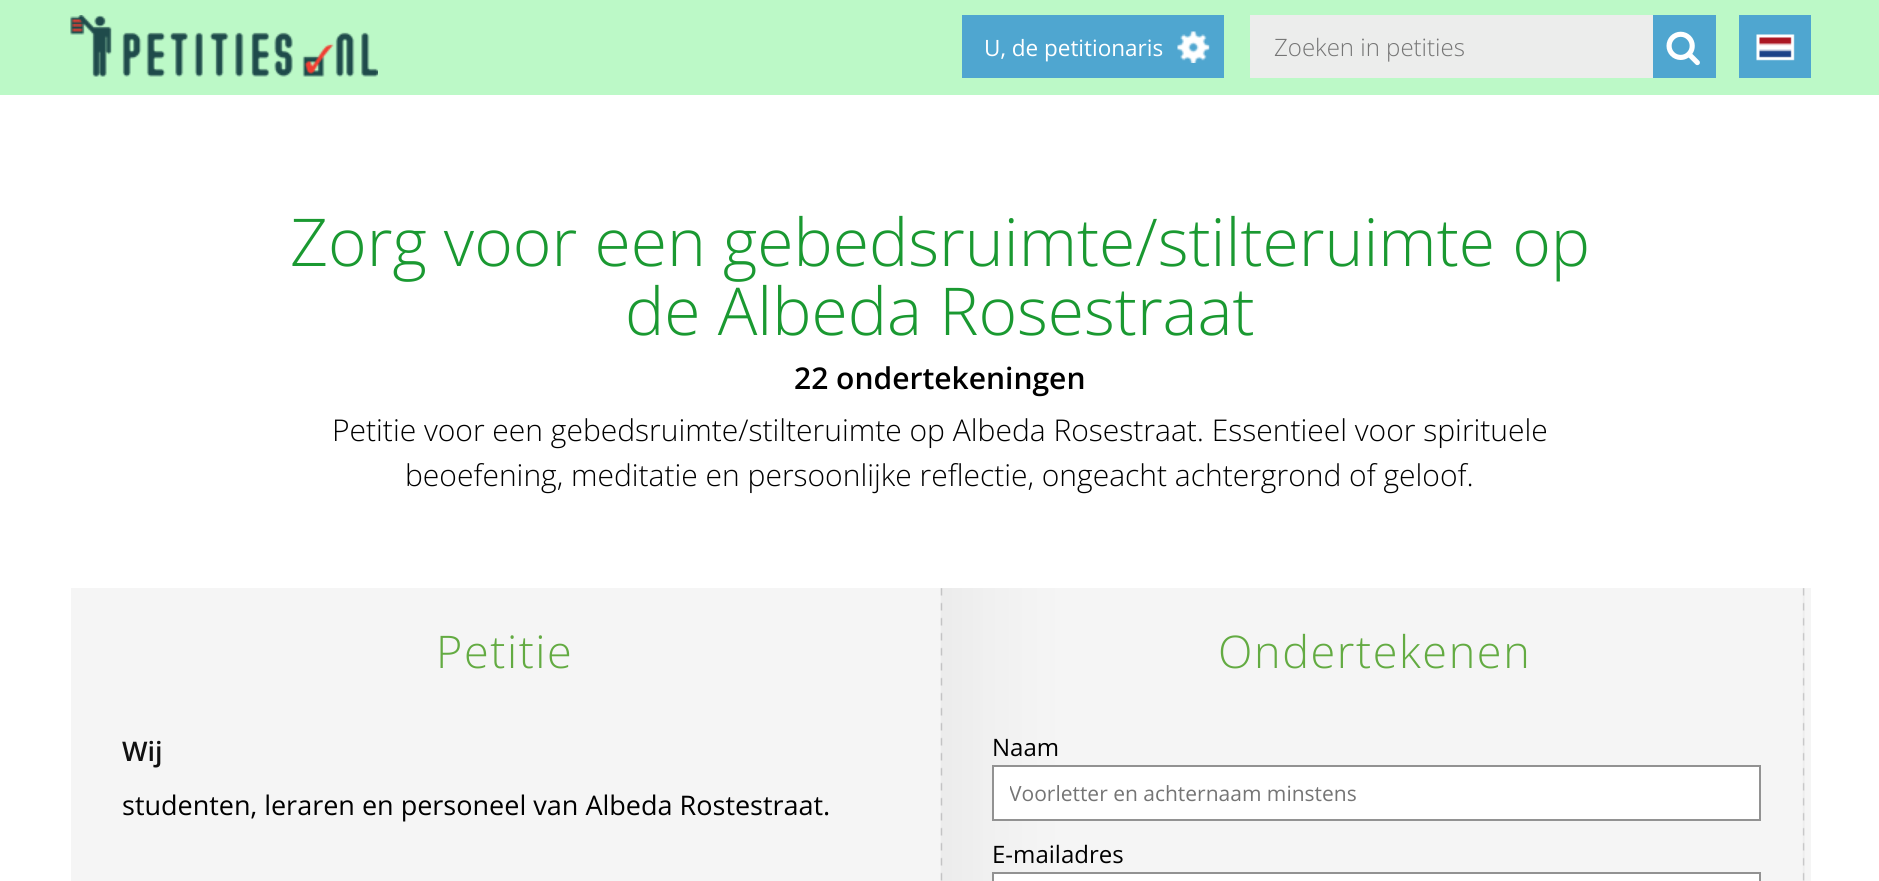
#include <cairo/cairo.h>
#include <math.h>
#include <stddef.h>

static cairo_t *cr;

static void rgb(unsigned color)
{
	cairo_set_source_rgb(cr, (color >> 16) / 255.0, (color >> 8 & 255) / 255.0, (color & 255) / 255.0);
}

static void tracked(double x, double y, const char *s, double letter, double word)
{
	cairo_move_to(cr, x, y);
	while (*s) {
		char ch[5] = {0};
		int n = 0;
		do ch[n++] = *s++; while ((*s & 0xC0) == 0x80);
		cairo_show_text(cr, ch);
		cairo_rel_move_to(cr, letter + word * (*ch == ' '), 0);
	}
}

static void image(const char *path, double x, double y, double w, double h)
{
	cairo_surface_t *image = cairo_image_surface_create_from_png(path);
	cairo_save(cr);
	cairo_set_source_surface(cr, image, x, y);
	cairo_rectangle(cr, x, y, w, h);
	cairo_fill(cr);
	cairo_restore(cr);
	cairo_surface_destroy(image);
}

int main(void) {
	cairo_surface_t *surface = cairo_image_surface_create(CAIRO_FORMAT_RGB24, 1879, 881);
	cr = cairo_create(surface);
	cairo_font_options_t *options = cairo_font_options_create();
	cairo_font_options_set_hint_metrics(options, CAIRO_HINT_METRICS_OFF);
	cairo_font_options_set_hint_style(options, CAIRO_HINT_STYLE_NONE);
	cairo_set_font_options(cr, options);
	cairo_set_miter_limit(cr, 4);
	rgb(0xffffff);
	cairo_paint(cr);
	rgb(0xbcf9c7);
	cairo_rectangle(cr, 0, 0, 1879, 95);
	cairo_fill(cr);
	image("img/1.png", 70, 15, 308, 62);
	rgb(0x4fa6d0);
	cairo_rectangle(cr, 962, 15, 262, 63);
	cairo_fill(cr);
	image("img/2.png", 1177, 31, 33, 32);
	rgb(0xecedec);
	cairo_rectangle(cr, 1250, 15, 403, 63);
	cairo_fill(cr);
	rgb(0x4fa6d0);
	cairo_rectangle(cr, 1653, 15, 63, 63);
	cairo_fill(cr);
	image("img/3.png", 1666, 31, 34, 35);
	cairo_rectangle(cr, 1739, 15, 72, 63);
	cairo_fill(cr);
	image("img/4.png", 1756, 34, 39, 27);
	rgb(0xf5f5f5);
	cairo_rectangle(cr, 71, 588, 870, 293);
	cairo_fill(cr);
	cairo_rectangle(cr, 1804, 588, 7, 293);
	cairo_fill(cr);
	image("img/5.png", 940, 588, 865, 293);
	rgb(0xffffff);
	cairo_rectangle(cr, 993, 766, 767, 54);
	cairo_fill_preserve(cr);
	rgb(0x929292);
	cairo_stroke(cr);
	rgb(0xffffff);
	cairo_rectangle(cr, 993, 873, 767, 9);
	cairo_fill_preserve(cr);
	rgb(0x929292);
	cairo_stroke(cr);
	cairo_select_font_face(cr, "Open Sans", CAIRO_FONT_SLANT_NORMAL, CAIRO_FONT_WEIGHT_NORMAL);
	cairo_set_font_size(cr, 22.5);
	rgb(0xffffff);
	cairo_move_to(cr, 984, 56);
	cairo_show_text(cr, "U, de petitionaris");
	cairo_select_font_face(cr, "Open Sans Light", CAIRO_FONT_SLANT_NORMAL, CAIRO_FONT_WEIGHT_NORMAL);
	cairo_set_font_size(cr, 24);
	rgb(0x757575);
	cairo_move_to(cr, 1274, 56);
	cairo_show_text(cr, "Zoeken in petities");
	cairo_set_font_size(cr, 66);
	rgb(0x1a9931);
	cairo_move_to(cr, 290, 266);
	cairo_show_text(cr, "Zorg voor een gebedsruimte/stilteruimte op");
	cairo_move_to(cr, 625, 335);
	cairo_show_text(cr, "de Albeda Rosestraat");
	cairo_select_font_face(cr, "Open Sans SemiBold", CAIRO_FONT_SLANT_NORMAL, CAIRO_FONT_WEIGHT_NORMAL);
	cairo_set_font_size(cr, 30);
	rgb(0x000000);
	cairo_move_to(cr, 794, 389);
	cairo_show_text(cr, "22 ondertekeningen");
	cairo_select_font_face(cr, "Open Sans Light", CAIRO_FONT_SLANT_NORMAL, CAIRO_FONT_WEIGHT_NORMAL);
	cairo_move_to(cr, 332, 441);
	cairo_show_text(cr, "Petitie voor een gebedsruimte/stilteruimte op Albeda Rosestraat. Essentieel voor spirituele");
	cairo_move_to(cr, 405, 486);
	cairo_show_text(cr, "beoefening, meditatie en persoonlijke reflectie, ongeacht achtergrond of geloof.");
	cairo_set_font_size(cr, 45);
	rgb(0x63ab42);
	tracked(436, 668, "Petitie", 1.6, 0);
	cairo_select_font_face(cr, "Open Sans SemiBold", CAIRO_FONT_SLANT_NORMAL, CAIRO_FONT_WEIGHT_NORMAL);
	cairo_set_font_size(cr, 27);
	rgb(0x111111);
	cairo_move_to(cr, 122, 761);
	cairo_show_text(cr, "Wij");
	cairo_select_font_face(cr, "Open Sans", CAIRO_FONT_SLANT_NORMAL, CAIRO_FONT_WEIGHT_NORMAL);
	rgb(0x000000);
	cairo_move_to(cr, 122, 815);
	cairo_show_text(cr, "studenten, leraren en personeel van Albeda Rostestraat.");
	cairo_select_font_face(cr, "Open Sans Light", CAIRO_FONT_SLANT_NORMAL, CAIRO_FONT_WEIGHT_NORMAL);
	cairo_set_font_size(cr, 45);
	rgb(0x63ab42);
	tracked(1218, 668, "Ondertekenen", 1.6, 0);
	cairo_select_font_face(cr, "Open Sans", CAIRO_FONT_SLANT_NORMAL, CAIRO_FONT_WEIGHT_NORMAL);
	cairo_set_font_size(cr, 24);
	rgb(0x000000);
	cairo_move_to(cr, 992, 756);
	cairo_show_text(cr, "Naam");
	cairo_save(cr);
	cairo_rectangle(cr, 1010, 779, 733, 28);
	cairo_clip(cr);
	cairo_set_font_size(cr, 21);
	rgb(0x757575);
	cairo_move_to(cr, 1009, 801);
	cairo_show_text(cr, "Voorletter en achternaam minstens");
	cairo_restore(cr);
	cairo_move_to(cr, 992, 863);
	cairo_show_text(cr, "E-mailadres");
	cairo_surface_write_to_png(surface, "page.png");
	cairo_font_options_destroy(options);
	cairo_destroy(cr);
	cairo_surface_destroy(surface);
	return 0;
}
